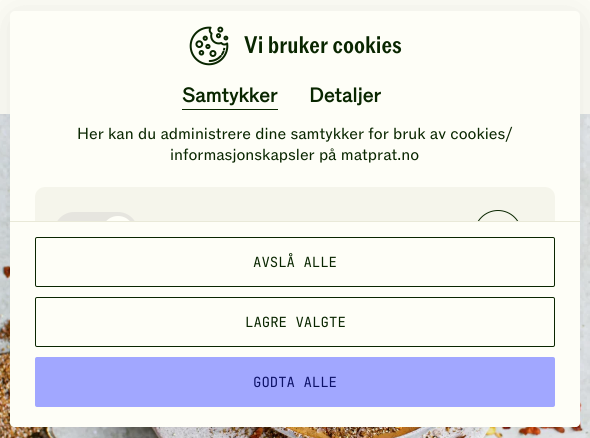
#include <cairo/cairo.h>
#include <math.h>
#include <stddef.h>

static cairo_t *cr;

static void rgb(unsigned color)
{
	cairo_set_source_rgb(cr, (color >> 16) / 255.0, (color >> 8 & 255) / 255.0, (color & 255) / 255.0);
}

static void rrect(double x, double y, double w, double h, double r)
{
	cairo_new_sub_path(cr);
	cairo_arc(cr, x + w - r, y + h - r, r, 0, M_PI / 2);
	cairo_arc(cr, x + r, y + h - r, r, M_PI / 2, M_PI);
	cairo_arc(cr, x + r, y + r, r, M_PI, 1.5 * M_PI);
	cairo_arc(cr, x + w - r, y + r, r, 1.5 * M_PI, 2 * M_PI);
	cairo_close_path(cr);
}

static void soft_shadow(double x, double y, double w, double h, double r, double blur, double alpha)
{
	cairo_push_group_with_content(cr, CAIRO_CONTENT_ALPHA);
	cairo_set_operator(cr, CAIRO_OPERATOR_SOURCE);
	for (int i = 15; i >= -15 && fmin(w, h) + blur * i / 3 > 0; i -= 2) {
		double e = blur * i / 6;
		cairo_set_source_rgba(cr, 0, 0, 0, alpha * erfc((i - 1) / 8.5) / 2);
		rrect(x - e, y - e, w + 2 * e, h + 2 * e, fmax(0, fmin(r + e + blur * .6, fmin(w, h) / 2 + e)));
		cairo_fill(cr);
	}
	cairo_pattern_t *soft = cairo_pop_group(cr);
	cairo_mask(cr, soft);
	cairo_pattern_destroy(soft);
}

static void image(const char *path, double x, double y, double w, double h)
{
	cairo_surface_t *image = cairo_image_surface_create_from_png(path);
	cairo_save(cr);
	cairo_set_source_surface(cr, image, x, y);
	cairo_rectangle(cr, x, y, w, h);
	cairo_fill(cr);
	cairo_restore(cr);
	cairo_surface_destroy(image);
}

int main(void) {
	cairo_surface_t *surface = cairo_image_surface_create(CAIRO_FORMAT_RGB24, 590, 438);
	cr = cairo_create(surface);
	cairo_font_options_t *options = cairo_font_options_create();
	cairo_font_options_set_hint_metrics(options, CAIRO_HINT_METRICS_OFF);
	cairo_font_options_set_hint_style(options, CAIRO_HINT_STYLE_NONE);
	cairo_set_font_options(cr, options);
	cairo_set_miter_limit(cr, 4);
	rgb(0xfefef7);
	cairo_paint(cr);
	image("img/2.png", 0, 114, 590, 324);
	rgb(0x000000);
	soft_shadow(10, 15, 570, 416, 5, 20, 0.1);
	rgb(0xfefef7);
	rrect(10, 11, 570, 416, 5);
	cairo_fill(cr);
	image("img/1.png", 189, 26, 40, 40);
	rgb(0x092600);
	cairo_rectangle(cr, 182, 109, 96, 1);
	cairo_fill(cr);
	rgb(0xf5f5eb);
	cairo_new_path(cr);
	cairo_move_to(cr, 45, 187);
	cairo_line_to(cr, 545, 187);
	cairo_curve_to(cr, 550.5, 187, 555, 191.5, 555, 197);
	cairo_line_to(cr, 555, 221);
	cairo_line_to(cr, 35, 221);
	cairo_line_to(cr, 35, 197);
	cairo_curve_to(cr, 35, 191.5, 39.5, 187, 45, 187);
	cairo_close_path(cr);
	cairo_fill(cr);
	rgb(0xe6e5df);
	cairo_new_path(cr);
	cairo_move_to(cr, 74, 212);
	cairo_line_to(cr, 118, 212);
	cairo_curve_to(cr, 129, 212, 138, 221, 138, 232);
	cairo_line_to(cr, 138, 221);
	cairo_line_to(cr, 54, 221);
	cairo_line_to(cr, 54, 232);
	cairo_curve_to(cr, 54, 221, 63, 212, 74, 212);
	cairo_close_path(cr);
	cairo_fill(cr);
	rgb(0xfefef7);
	cairo_new_path(cr);
	cairo_move_to(cr, 118, 216);
	cairo_curve_to(cr, 127, 216, 134, 223, 134, 232);
	cairo_line_to(cr, 134, 221);
	cairo_line_to(cr, 102, 221);
	cairo_line_to(cr, 102, 232);
	cairo_curve_to(cr, 102, 223, 109, 216, 118, 216);
	cairo_close_path(cr);
	cairo_fill(cr);
	cairo_new_path(cr);
	cairo_move_to(cr, 10, 221);
	cairo_line_to(cr, 580, 221);
	cairo_line_to(cr, 580, 422);
	cairo_curve_to(cr, 580, 425, 578, 427, 575, 427);
	cairo_line_to(cr, 15, 427);
	cairo_curve_to(cr, 12, 427, 10, 425, 10, 422);
	cairo_close_path(cr);
	cairo_fill(cr);
	rgb(0xe9e9d8);
	cairo_rectangle(cr, 10, 221, 570, 1);
	cairo_fill(cr);
	rrect(35.5, 237.5, 519, 49, 1.5);
	rgb(0x092600);
	cairo_set_line_width(cr, 1);
	cairo_stroke(cr);
	cairo_save(cr);
	cairo_rectangle(cr, 10, 124, 570, 97);
	cairo_clip(cr);
	cairo_arc(cr, 498, 234, 23.5, 0, 2 * M_PI);
	cairo_stroke(cr);
	cairo_restore(cr);
	rrect(35.5, 297.5, 519, 49, 1.5);
	cairo_stroke(cr);
	rgb(0xa1a7ff);
	rrect(35, 357, 520, 50, 2);
	cairo_fill(cr);
	cairo_select_font_face(cr, "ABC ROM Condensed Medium", CAIRO_FONT_SLANT_NORMAL, CAIRO_FONT_WEIGHT_NORMAL);
	cairo_set_font_size(cr, 24);
	rgb(0x092600);
	cairo_move_to(cr, 244, 53);
	cairo_show_text(cr, "Vi bruker cookies");
	cairo_select_font_face(cr, "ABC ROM", CAIRO_FONT_SLANT_NORMAL, CAIRO_FONT_WEIGHT_BOLD);
	cairo_set_font_size(cr, 20);
	cairo_move_to(cr, 182, 102);
	cairo_show_text(cr, "Samtykker");
	cairo_move_to(cr, 309, 102);
	cairo_show_text(cr, "Detaljer");
	cairo_select_font_face(cr, "ABC ROM", CAIRO_FONT_SLANT_NORMAL, CAIRO_FONT_WEIGHT_NORMAL);
	cairo_set_font_size(cr, 16);
	cairo_move_to(cr, 77, 139);
	cairo_show_text(cr, "Her kan du administrere dine samtykker for bruk av cookies/");
	cairo_move_to(cr, 170, 160);
	cairo_show_text(cr, "informasjonskapsler på matprat.no");
	cairo_select_font_face(cr, "JetBrains Mono", CAIRO_FONT_SLANT_NORMAL, CAIRO_FONT_WEIGHT_NORMAL);
	cairo_set_font_size(cr, 14);
	cairo_move_to(cr, 253, 267);
	cairo_show_text(cr, "AVSLÅ ALLE");
	cairo_move_to(cr, 245, 327);
	cairo_show_text(cr, "LAGRE VALGTE");
	rgb(0x0d1268);
	cairo_move_to(cr, 253, 387);
	cairo_show_text(cr, "GODTA ALLE");
	cairo_surface_write_to_png(surface, "page.png");
	cairo_font_options_destroy(options);
	cairo_destroy(cr);
	cairo_surface_destroy(surface);
	return 0;
}
